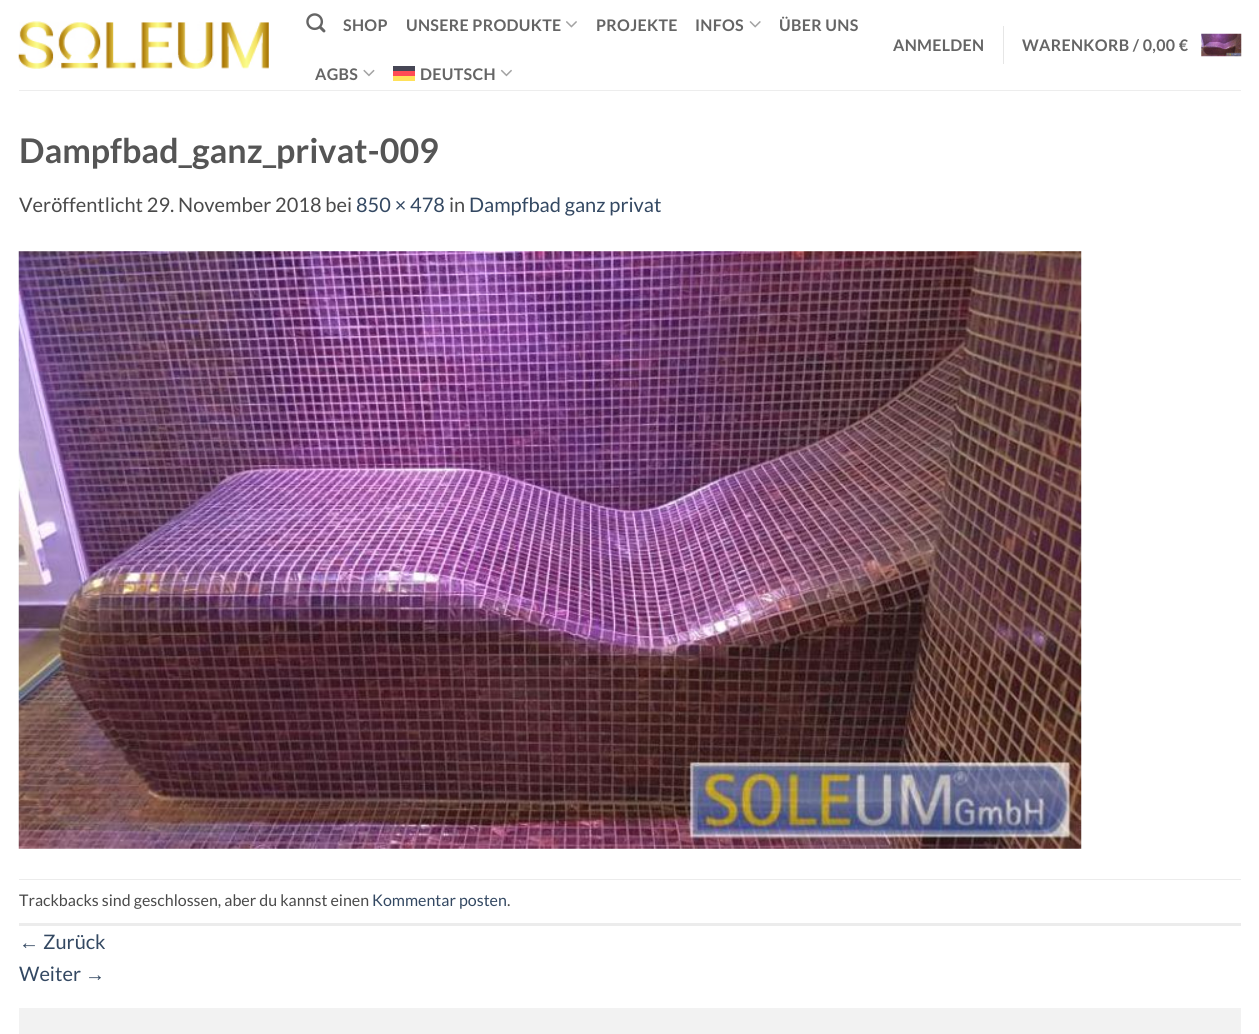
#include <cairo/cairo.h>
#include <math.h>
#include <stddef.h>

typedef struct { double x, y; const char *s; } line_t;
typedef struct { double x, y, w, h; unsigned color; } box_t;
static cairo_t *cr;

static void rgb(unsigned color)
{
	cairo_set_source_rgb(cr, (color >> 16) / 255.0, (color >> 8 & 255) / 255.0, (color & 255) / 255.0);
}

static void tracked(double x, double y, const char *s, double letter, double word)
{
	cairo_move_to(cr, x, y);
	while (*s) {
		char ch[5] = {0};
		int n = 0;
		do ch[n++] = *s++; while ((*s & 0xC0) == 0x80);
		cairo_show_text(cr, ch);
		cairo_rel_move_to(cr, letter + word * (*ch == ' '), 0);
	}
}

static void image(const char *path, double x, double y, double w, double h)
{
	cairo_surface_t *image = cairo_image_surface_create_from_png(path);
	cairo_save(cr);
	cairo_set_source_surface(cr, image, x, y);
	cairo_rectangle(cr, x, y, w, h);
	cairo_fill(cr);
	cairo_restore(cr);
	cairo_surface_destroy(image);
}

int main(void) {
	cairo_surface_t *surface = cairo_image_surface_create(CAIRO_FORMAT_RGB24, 1259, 1034);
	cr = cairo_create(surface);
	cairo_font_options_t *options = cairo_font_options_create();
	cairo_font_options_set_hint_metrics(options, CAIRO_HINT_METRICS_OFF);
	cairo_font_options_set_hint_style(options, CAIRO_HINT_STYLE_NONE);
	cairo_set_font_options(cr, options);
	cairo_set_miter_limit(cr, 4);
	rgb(0xffffff);
	cairo_paint(cr);
	image("img/1.png", 18, 21, 251, 48);
	image("img/2.png", 306, 13, 20, 20);
	image("img/3.png", 566, 21, 11, 7);
	image("img/4.png", 749, 21, 12, 7);
	image("img/5.png", 363, 69, 12, 8);
	{
		static const box_t items[] = {
			{393, 71, 22, 5, 0xff4b55},
			{393, 76, 22, 5, 0xffe15a},
			{393, 66, 22, 5, 0x464655},
		};
		for (size_t i = 0; i < sizeof items / sizeof *items; i++) {
			rgb(items[i].color);
			cairo_rectangle(cr, items[i].x, items[i].y, items[i].w, items[i].h);
			cairo_fill(cr);
		}
	}
	image("img/6.png", 500, 69, 12, 8);
	rgb(0xe6e6e6);
	cairo_rectangle(cr, 1003, 26, 1, 38);
	cairo_fill(cr);
	image("img/7.png", 1201, 33, 41, 24);
	rgb(0xededed);
	cairo_rectangle(cr, 19, 90, 1222, 1);
	cairo_fill(cr);
	image("img/8.png", 18, 251, 1064, 598);
	{
		static const box_t items[] = {
			{19, 879, 1222, 1, 0xececec},
			{19, 923, 1222, 3, 0xececec},
			{19, 1008, 1222, 26, 0xf2f2f2},
		};
		for (size_t i = 0; i < sizeof items / sizeof *items; i++) {
			rgb(items[i].color);
			cairo_rectangle(cr, items[i].x, items[i].y, items[i].w, items[i].h);
			cairo_fill(cr);
		}
	}
	cairo_select_font_face(cr, "Lato", CAIRO_FONT_SLANT_NORMAL, CAIRO_FONT_WEIGHT_BOLD);
	cairo_set_font_size(cr, 16);
	rgb(0x656565);
	{
		static const line_t items[] = {
			{343, 31, "SHOP"},
			{406, 31, "UNSERE PRODUKTE"},
			{596, 31, "PROJEKTE"},
			{695, 31, "INFOS"},
			{779, 31, "ÜBER UNS"},
			{315, 80, "AGBS"},
			{420, 80, "DEUTSCH"},
			{893, 51, "ANMELDEN"},
			{1022, 51, "WARENKORB / 0,00 €"},
		};
		for (size_t i = 0; i < sizeof items / sizeof *items; i++) {
			tracked(items[i].x, items[i].y, items[i].s, 0.3, 0);
		}
	}
	cairo_set_font_size(cr, 34);
	rgb(0x555555);
	cairo_move_to(cr, 19, 163);
	cairo_show_text(cr, "Dampfbad_ganz_privat-009");
	cairo_select_font_face(cr, "Lato", CAIRO_FONT_SLANT_NORMAL, CAIRO_FONT_WEIGHT_NORMAL);
	cairo_set_font_size(cr, 20);
	rgb(0x4a4a4a);
	cairo_move_to(cr, 19, 212);
	cairo_show_text(cr, "Veröffentlicht 29. November 2018 bei");
	rgb(0x334862);
	cairo_move_to(cr, 356, 212);
	cairo_show_text(cr, "850 × 478");
	rgb(0x4a4a4a);
	cairo_move_to(cr, 449, 212);
	cairo_show_text(cr, "in");
	rgb(0x334862);
	cairo_move_to(cr, 469, 212);
	cairo_show_text(cr, "Dampfbad ganz privat");
	cairo_set_font_size(cr, 16);
	rgb(0x4a4a4a);
	cairo_move_to(cr, 19, 906);
	cairo_show_text(cr, "Trackbacks sind geschlossen, aber du kannst einen");
	rgb(0x334862);
	cairo_move_to(cr, 372, 906);
	cairo_show_text(cr, "Kommentar posten");
	rgb(0x4a4a4a);
	cairo_move_to(cr, 507, 906);
	cairo_show_text(cr, ".");
	cairo_select_font_face(cr, "Liberation Sans", CAIRO_FONT_SLANT_NORMAL, CAIRO_FONT_WEIGHT_NORMAL);
	cairo_set_font_size(cr, 20);
	rgb(0x334862);
	cairo_move_to(cr, 19, 949);
	cairo_show_text(cr, "←");
	cairo_select_font_face(cr, "Lato", CAIRO_FONT_SLANT_NORMAL, CAIRO_FONT_WEIGHT_NORMAL);
	cairo_move_to(cr, 43, 949);
	cairo_show_text(cr, "Zurück");
	cairo_move_to(cr, 19, 981);
	cairo_show_text(cr, "Weiter");
	cairo_select_font_face(cr, "Liberation Sans", CAIRO_FONT_SLANT_NORMAL, CAIRO_FONT_WEIGHT_NORMAL);
	cairo_move_to(cr, 85, 981);
	cairo_show_text(cr, "→");
	cairo_surface_write_to_png(surface, "page.png");
	cairo_font_options_destroy(options);
	cairo_destroy(cr);
	cairo_surface_destroy(surface);
	return 0;
}
